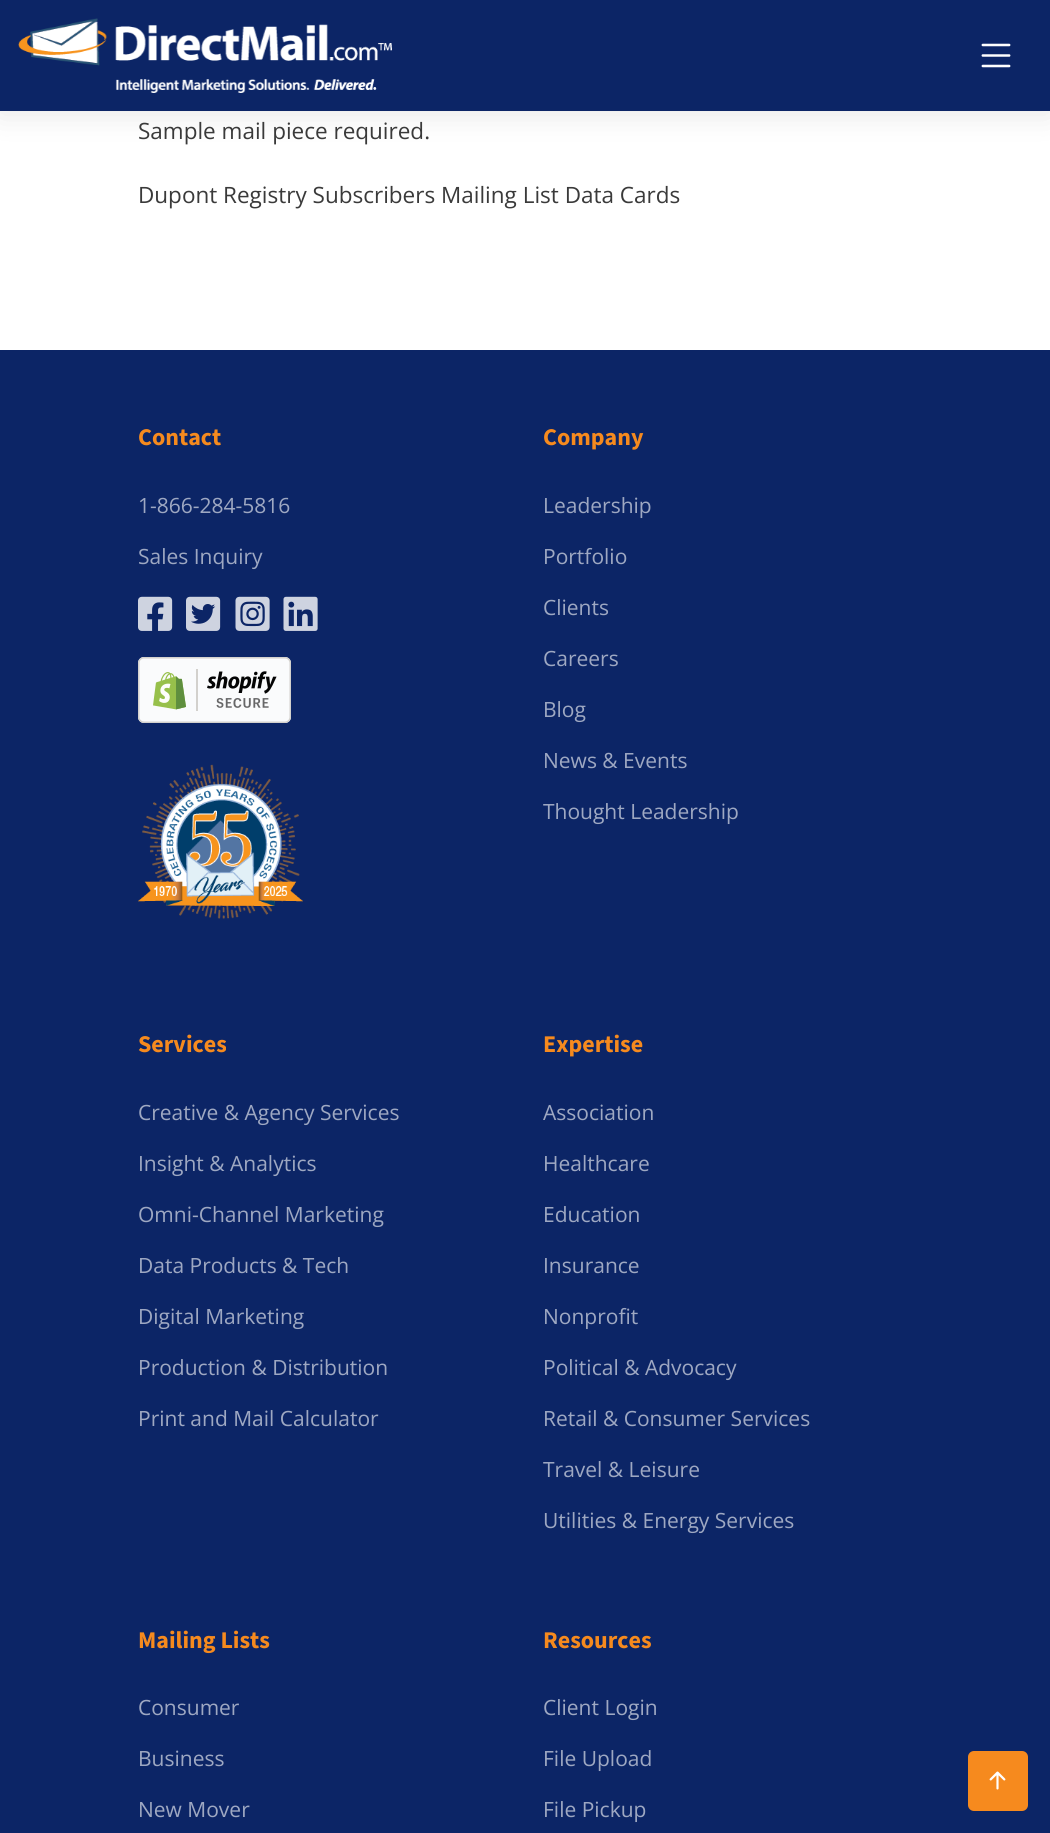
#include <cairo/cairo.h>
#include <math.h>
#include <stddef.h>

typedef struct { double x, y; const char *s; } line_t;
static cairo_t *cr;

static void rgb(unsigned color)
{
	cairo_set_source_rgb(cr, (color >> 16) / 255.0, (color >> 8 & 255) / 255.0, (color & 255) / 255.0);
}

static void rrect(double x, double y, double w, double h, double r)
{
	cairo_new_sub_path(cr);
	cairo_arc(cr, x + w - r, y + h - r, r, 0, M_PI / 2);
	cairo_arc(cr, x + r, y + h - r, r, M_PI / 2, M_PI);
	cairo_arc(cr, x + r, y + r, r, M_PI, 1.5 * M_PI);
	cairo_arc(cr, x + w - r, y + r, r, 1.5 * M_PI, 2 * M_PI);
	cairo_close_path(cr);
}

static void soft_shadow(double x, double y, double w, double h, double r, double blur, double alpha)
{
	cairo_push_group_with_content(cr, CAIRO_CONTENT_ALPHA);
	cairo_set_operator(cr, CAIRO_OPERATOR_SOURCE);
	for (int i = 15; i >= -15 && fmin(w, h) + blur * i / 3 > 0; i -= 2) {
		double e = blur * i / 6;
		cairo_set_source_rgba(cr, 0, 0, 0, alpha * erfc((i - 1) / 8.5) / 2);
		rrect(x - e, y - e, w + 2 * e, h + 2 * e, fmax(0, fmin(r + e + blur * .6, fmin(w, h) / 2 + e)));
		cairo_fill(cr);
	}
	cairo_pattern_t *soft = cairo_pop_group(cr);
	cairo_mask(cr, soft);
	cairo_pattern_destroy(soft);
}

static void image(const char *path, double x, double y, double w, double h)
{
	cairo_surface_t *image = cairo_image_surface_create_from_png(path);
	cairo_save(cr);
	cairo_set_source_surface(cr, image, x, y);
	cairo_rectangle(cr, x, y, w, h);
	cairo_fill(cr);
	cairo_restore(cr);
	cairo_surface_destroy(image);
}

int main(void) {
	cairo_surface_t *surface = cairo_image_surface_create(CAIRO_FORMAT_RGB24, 1050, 1833);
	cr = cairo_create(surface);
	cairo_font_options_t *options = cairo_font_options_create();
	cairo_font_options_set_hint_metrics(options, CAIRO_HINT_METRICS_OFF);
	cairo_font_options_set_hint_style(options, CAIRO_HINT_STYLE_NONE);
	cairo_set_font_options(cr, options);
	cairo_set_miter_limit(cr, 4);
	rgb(0xffffff);
	cairo_paint(cr);
	rgb(0x000000);
	soft_shadow(0, 3, 1050, 111, 0, 15, 0.1);
	rgb(0x0c2566);
	cairo_rectangle(cr, 0, 0, 1050, 111);
	cairo_fill(cr);
	image("img/1.png", 18, 18, 374, 75);
	image("img/2.png", 981, 43, 30, 25);
	cairo_rectangle(cr, 0, 350, 1050, 1483);
	cairo_fill(cr);
	image("img/3.png", 138, 596, 35, 35);
	image("img/4.png", 186, 596, 35, 35);
	image("img/5.png", 235, 596, 35, 35);
	image("img/6.png", 283, 596, 35, 35);
	image("img/7.png", 138, 657, 153, 66);
	image("img/8.png", 138, 764, 165, 155);
	rgb(0xf68a1e);
	rrect(968, 1751, 60, 60, 6);
	cairo_fill(cr);
	image("img/9.png", 989, 1771, 17, 19);
	cairo_select_font_face(cr, "Open Sans", CAIRO_FONT_SLANT_NORMAL, CAIRO_FONT_WEIGHT_NORMAL);
	cairo_set_font_size(cr, 22.5);
	rgb(0x3a3a3a);
	cairo_move_to(cr, 138, 139);
	cairo_show_text(cr, "Sample mail piece required.");
	cairo_move_to(cr, 138, 203);
	cairo_show_text(cr, "Dupont Registry Subscribers Mailing List Data Cards");
	cairo_select_font_face(cr, "Source Sans 3", CAIRO_FONT_SLANT_NORMAL, CAIRO_FONT_WEIGHT_BOLD);
	cairo_set_font_size(cr, 24);
	rgb(0xf68a1e);
	cairo_move_to(cr, 138, 445);
	cairo_show_text(cr, "Contact");
	cairo_select_font_face(cr, "Open Sans", CAIRO_FONT_SLANT_NORMAL, CAIRO_FONT_WEIGHT_NORMAL);
	cairo_set_font_size(cr, 21);
	rgb(0x9ea8c2);
	cairo_move_to(cr, 138, 513);
	cairo_show_text(cr, "1-866-284-5816");
	cairo_move_to(cr, 138, 564);
	cairo_show_text(cr, "Sales Inquiry");
	cairo_select_font_face(cr, "Source Sans 3", CAIRO_FONT_SLANT_NORMAL, CAIRO_FONT_WEIGHT_BOLD);
	cairo_set_font_size(cr, 24);
	rgb(0xf68a1e);
	cairo_move_to(cr, 543, 445);
	cairo_show_text(cr, "Company");
	cairo_select_font_face(cr, "Open Sans", CAIRO_FONT_SLANT_NORMAL, CAIRO_FONT_WEIGHT_NORMAL);
	cairo_set_font_size(cr, 21);
	rgb(0x9ea8c2);
	{
		static const line_t items[] = {
			{543, 513, "Leadership"},
			{543, 564, "Portfolio"},
			{543, 615, "Clients"},
			{543, 666, "Careers"},
			{543, 717, "Blog"},
			{543, 768, "News & Events"},
			{543, 819, "Thought Leadership"},
		};
		for (size_t i = 0; i < sizeof items / sizeof *items; i++) {
			cairo_move_to(cr, items[i].x, items[i].y);
			cairo_show_text(cr, items[i].s);
		}
	}
	cairo_select_font_face(cr, "Source Sans 3", CAIRO_FONT_SLANT_NORMAL, CAIRO_FONT_WEIGHT_BOLD);
	cairo_set_font_size(cr, 24);
	rgb(0xf68a1e);
	cairo_move_to(cr, 138, 1052);
	cairo_show_text(cr, "Services");
	cairo_select_font_face(cr, "Open Sans", CAIRO_FONT_SLANT_NORMAL, CAIRO_FONT_WEIGHT_NORMAL);
	cairo_set_font_size(cr, 21);
	rgb(0x9ea8c2);
	{
		static const line_t items[] = {
			{138, 1120, "Creative & Agency Services"},
			{138, 1171, "Insight & Analytics"},
			{138, 1222, "Omni-Channel Marketing"},
			{138, 1273, "Data Products & Tech"},
			{138, 1324, "Digital Marketing"},
			{138, 1375, "Production & Distribution"},
			{138, 1426, "Print and Mail Calculator"},
		};
		for (size_t i = 0; i < sizeof items / sizeof *items; i++) {
			cairo_move_to(cr, items[i].x, items[i].y);
			cairo_show_text(cr, items[i].s);
		}
	}
	cairo_select_font_face(cr, "Source Sans 3", CAIRO_FONT_SLANT_NORMAL, CAIRO_FONT_WEIGHT_BOLD);
	cairo_set_font_size(cr, 24);
	rgb(0xf68a1e);
	cairo_move_to(cr, 543, 1052);
	cairo_show_text(cr, "Expertise");
	cairo_select_font_face(cr, "Open Sans", CAIRO_FONT_SLANT_NORMAL, CAIRO_FONT_WEIGHT_NORMAL);
	cairo_set_font_size(cr, 21);
	rgb(0x9ea8c2);
	{
		static const line_t items[] = {
			{543, 1120, "Association"},
			{543, 1171, "Healthcare"},
			{543, 1222, "Education"},
			{543, 1273, "Insurance"},
			{543, 1324, "Nonprofit"},
			{543, 1375, "Political & Advocacy"},
			{543, 1426, "Retail & Consumer Services"},
			{543, 1477, "Travel & Leisure"},
			{543, 1528, "Utilities & Energy Services"},
		};
		for (size_t i = 0; i < sizeof items / sizeof *items; i++) {
			cairo_move_to(cr, items[i].x, items[i].y);
			cairo_show_text(cr, items[i].s);
		}
	}
	cairo_select_font_face(cr, "Source Sans 3", CAIRO_FONT_SLANT_NORMAL, CAIRO_FONT_WEIGHT_BOLD);
	cairo_set_font_size(cr, 24);
	rgb(0xf68a1e);
	cairo_move_to(cr, 138, 1648);
	cairo_show_text(cr, "Mailing Lists");
	cairo_select_font_face(cr, "Open Sans", CAIRO_FONT_SLANT_NORMAL, CAIRO_FONT_WEIGHT_NORMAL);
	cairo_set_font_size(cr, 21);
	rgb(0x9ea8c2);
	{
		static const line_t items[] = {
			{138, 1715, "Consumer"},
			{138, 1766, "Business"},
			{138, 1817, "New Mover"},
		};
		for (size_t i = 0; i < sizeof items / sizeof *items; i++) {
			cairo_move_to(cr, items[i].x, items[i].y);
			cairo_show_text(cr, items[i].s);
		}
	}
	cairo_select_font_face(cr, "Source Sans 3", CAIRO_FONT_SLANT_NORMAL, CAIRO_FONT_WEIGHT_BOLD);
	cairo_set_font_size(cr, 24);
	rgb(0xf68a1e);
	cairo_move_to(cr, 543, 1648);
	cairo_show_text(cr, "Resources");
	cairo_select_font_face(cr, "Open Sans", CAIRO_FONT_SLANT_NORMAL, CAIRO_FONT_WEIGHT_NORMAL);
	cairo_set_font_size(cr, 21);
	rgb(0x9ea8c2);
	{
		static const line_t items[] = {
			{543, 1715, "Client Login"},
			{543, 1766, "File Upload"},
			{543, 1817, "File Pickup"},
		};
		for (size_t i = 0; i < sizeof items / sizeof *items; i++) {
			cairo_move_to(cr, items[i].x, items[i].y);
			cairo_show_text(cr, items[i].s);
		}
	}
	cairo_surface_write_to_png(surface, "page.png");
	cairo_font_options_destroy(options);
	cairo_destroy(cr);
	cairo_surface_destroy(surface);
	return 0;
}
